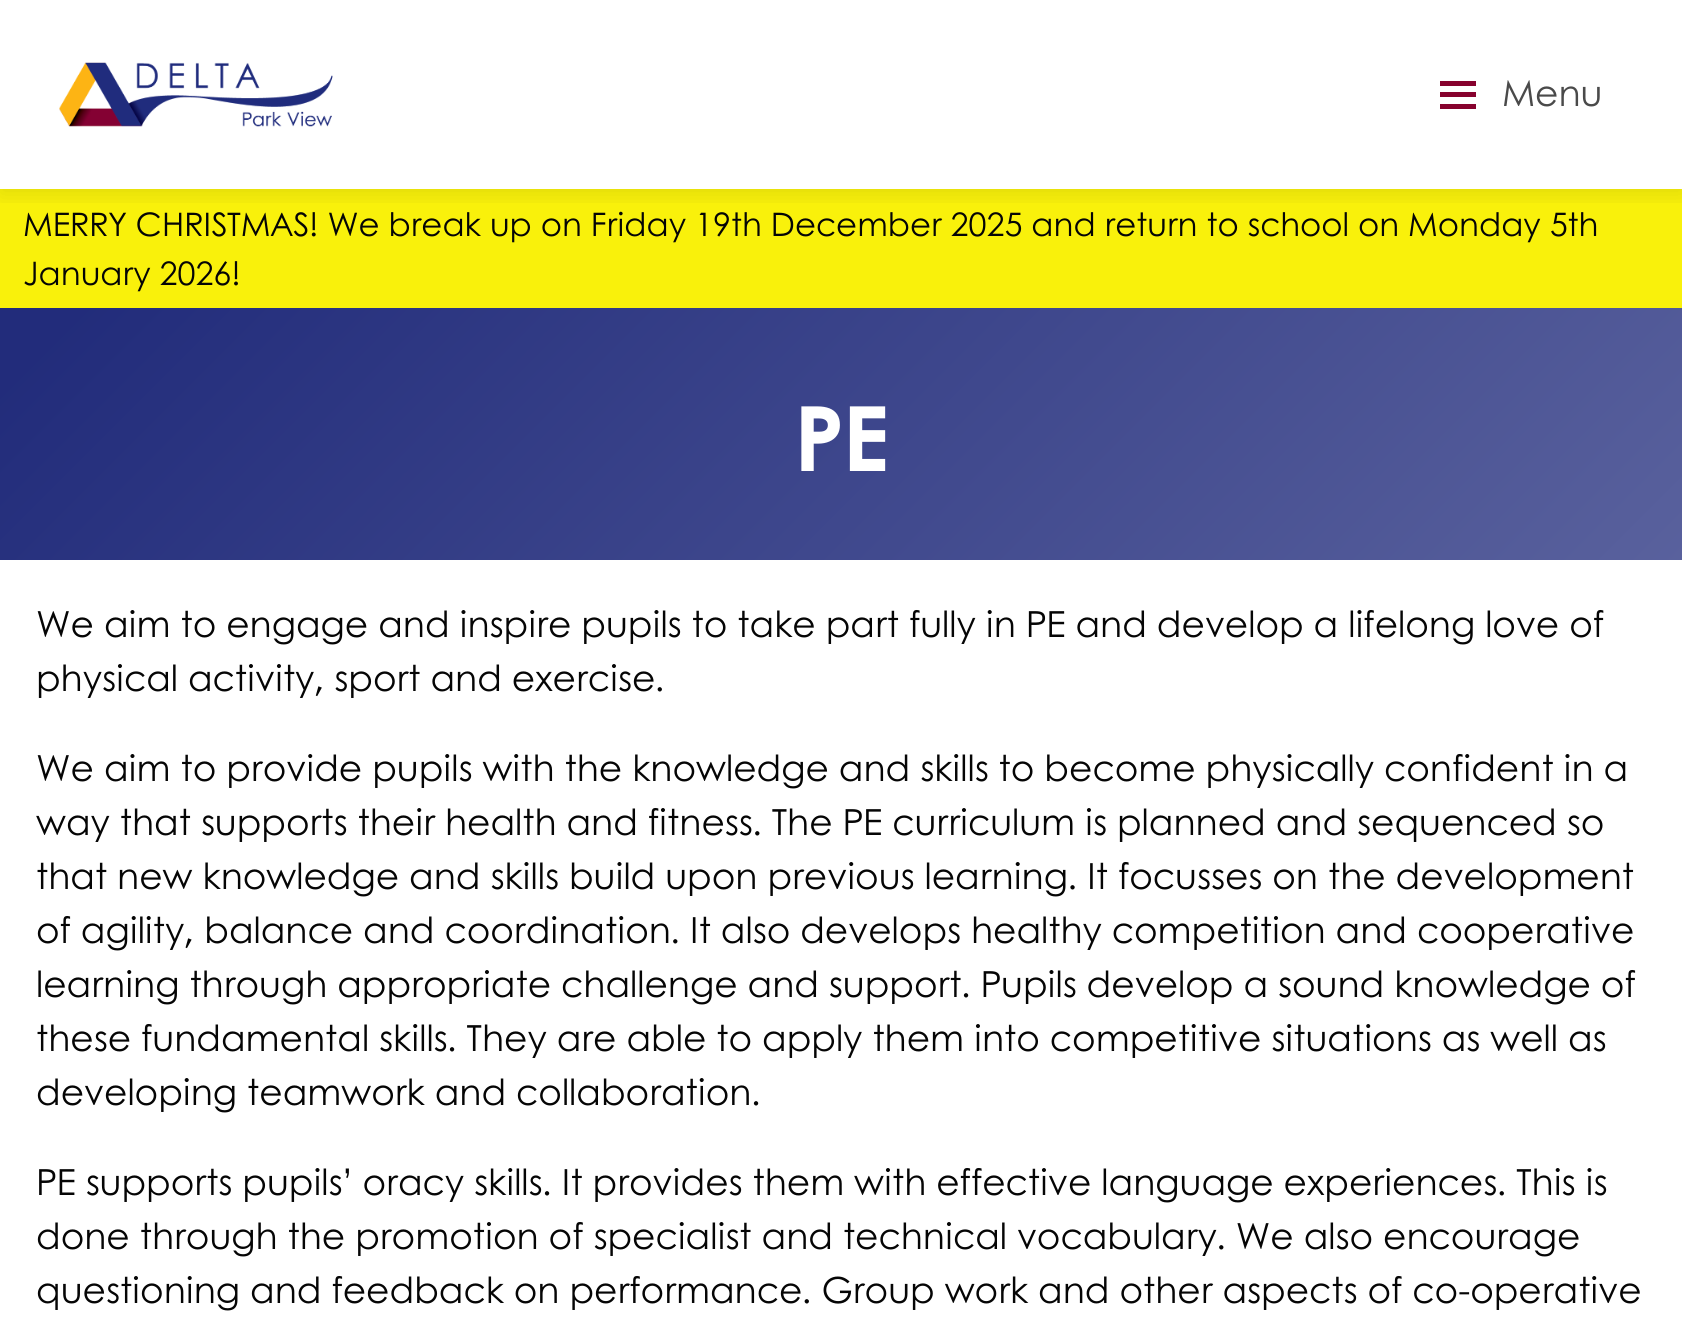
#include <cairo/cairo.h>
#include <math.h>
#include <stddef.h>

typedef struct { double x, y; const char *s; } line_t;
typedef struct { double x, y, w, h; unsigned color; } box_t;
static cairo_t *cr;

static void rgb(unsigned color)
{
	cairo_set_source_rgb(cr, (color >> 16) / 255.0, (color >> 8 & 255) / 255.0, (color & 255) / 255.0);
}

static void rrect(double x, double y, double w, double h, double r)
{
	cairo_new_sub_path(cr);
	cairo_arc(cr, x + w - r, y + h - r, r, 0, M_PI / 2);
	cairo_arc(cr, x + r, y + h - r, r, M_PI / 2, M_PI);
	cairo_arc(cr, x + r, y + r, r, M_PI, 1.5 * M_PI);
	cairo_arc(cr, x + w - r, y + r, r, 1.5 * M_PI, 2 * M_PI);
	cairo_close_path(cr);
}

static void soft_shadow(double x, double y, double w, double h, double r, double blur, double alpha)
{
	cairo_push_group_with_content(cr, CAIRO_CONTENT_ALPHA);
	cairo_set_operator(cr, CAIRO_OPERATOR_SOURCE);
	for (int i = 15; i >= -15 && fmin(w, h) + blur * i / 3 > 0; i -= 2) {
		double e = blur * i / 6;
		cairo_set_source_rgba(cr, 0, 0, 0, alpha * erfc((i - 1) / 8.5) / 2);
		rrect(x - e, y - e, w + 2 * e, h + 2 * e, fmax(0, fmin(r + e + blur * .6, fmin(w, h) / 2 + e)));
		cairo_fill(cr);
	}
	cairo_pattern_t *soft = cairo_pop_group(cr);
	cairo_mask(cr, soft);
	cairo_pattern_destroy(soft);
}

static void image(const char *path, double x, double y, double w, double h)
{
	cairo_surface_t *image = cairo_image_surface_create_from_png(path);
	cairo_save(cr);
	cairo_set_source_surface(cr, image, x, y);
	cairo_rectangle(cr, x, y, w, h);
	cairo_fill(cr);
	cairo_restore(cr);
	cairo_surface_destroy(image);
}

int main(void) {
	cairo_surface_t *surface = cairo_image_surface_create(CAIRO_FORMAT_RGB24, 1682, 1338);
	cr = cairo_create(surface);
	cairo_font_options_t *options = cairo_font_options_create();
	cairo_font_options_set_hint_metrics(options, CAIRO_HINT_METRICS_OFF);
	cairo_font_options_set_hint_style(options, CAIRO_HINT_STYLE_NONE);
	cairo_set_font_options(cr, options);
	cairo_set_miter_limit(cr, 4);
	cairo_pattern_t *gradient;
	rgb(0xffffff);
	cairo_paint(cr);
	rgb(0xf9f10b);
	cairo_rectangle(cr, 0, 189, 1682, 119);
	cairo_fill(cr);
	cairo_save(cr);
	cairo_rectangle(cr, 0, 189, 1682, 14);
	cairo_clip(cr);
	rgb(0x000000);
	soft_shadow(0, 5, 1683, 189, 0, 11, 0.1);
	cairo_restore(cr);
	image("img/1.png", 59, 62, 274, 65);
	{
		static const box_t items[] = {
			{1440, 81, 36, 5, 0x87022e},
			{1440, 92, 36, 5, 0x87022e},
			{1440, 104, 36, 5, 0x87022e},
		};
		for (size_t i = 0; i < sizeof items / sizeof *items; i++) {
			rgb(items[i].color);
			cairo_rectangle(cr, items[i].x, items[i].y, items[i].w, items[i].h);
			cairo_fill(cr);
		}
	}
	gradient = cairo_pattern_create_linear(358, -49, 1325, 918);
	cairo_pattern_add_color_stop_rgba(gradient, 0.04, 0.133, 0.173, 0.482, 1);
	cairo_pattern_add_color_stop_rgba(gradient, 1, 0.349, 0.38, 0.616, 1);
	cairo_set_source(cr, gradient);
	cairo_pattern_destroy(gradient);
	cairo_rectangle(cr, 0, 308, 1682, 252);
	cairo_fill(cr);
	cairo_select_font_face(cr, "Century Gothic", CAIRO_FONT_SLANT_NORMAL, CAIRO_FONT_WEIGHT_NORMAL);
	cairo_set_font_size(cr, 36);
	rgb(0x4a4a4a);
	cairo_move_to(cr, 1502, 106);
	cairo_show_text(cr, "Menu");
	cairo_set_font_size(cr, 32.4);
	rgb(0x050505);
	cairo_move_to(cr, 23, 236);
	cairo_show_text(cr, "MERRY CHRISTMAS! We break up on Friday 19th December 2025 and return to school on Monday 5th");
	cairo_move_to(cr, 23, 285);
	cairo_show_text(cr, "January 2026!");
	cairo_select_font_face(cr, "Century Gothic", CAIRO_FONT_SLANT_NORMAL, CAIRO_FONT_WEIGHT_BOLD);
	cairo_set_font_size(cr, 90);
	rgb(0xffffff);
	cairo_move_to(cr, 794, 471);
	cairo_show_text(cr, "PE");
	cairo_select_font_face(cr, "Century Gothic", CAIRO_FONT_SLANT_NORMAL, CAIRO_FONT_WEIGHT_NORMAL);
	cairo_set_font_size(cr, 36);
	rgb(0x050505);
	{
		static const line_t items[] = {
			{36, 637, "We aim to engage and inspire pupils to take part fully in PE and develop a lifelong love of"},
			{36, 691, "physical activity, sport and exercise."},
			{36, 781, "We aim to provide pupils with the knowledge and skills to become physically confident in a"},
			{36, 835, "way that supports their health and fitness. The PE curriculum is planned and sequenced so"},
			{36, 889, "that new knowledge and skills build upon previous learning. It focusses on the development"},
			{36, 943, "of agility, balance and coordination. It also develops healthy competition and cooperative"},
			{36, 997, "learning through appropriate challenge and support. Pupils develop a sound knowledge of"},
			{36, 1051, "these fundamental skills. They are able to apply them into competitive situations as well as"},
			{36, 1105, "developing teamwork and collaboration."},
			{36, 1195, "PE supports pupils’ oracy skills. It provides them with effective language experiences. This is"},
			{36, 1249, "done through the promotion of specialist and technical vocabulary. We also encourage"},
			{36, 1303, "questioning and feedback on performance. Group work and other aspects of co-operative"},
		};
		for (size_t i = 0; i < sizeof items / sizeof *items; i++) {
			cairo_move_to(cr, items[i].x, items[i].y);
			cairo_show_text(cr, items[i].s);
		}
	}
	cairo_surface_write_to_png(surface, "page.png");
	cairo_font_options_destroy(options);
	cairo_destroy(cr);
	cairo_surface_destroy(surface);
	return 0;
}
